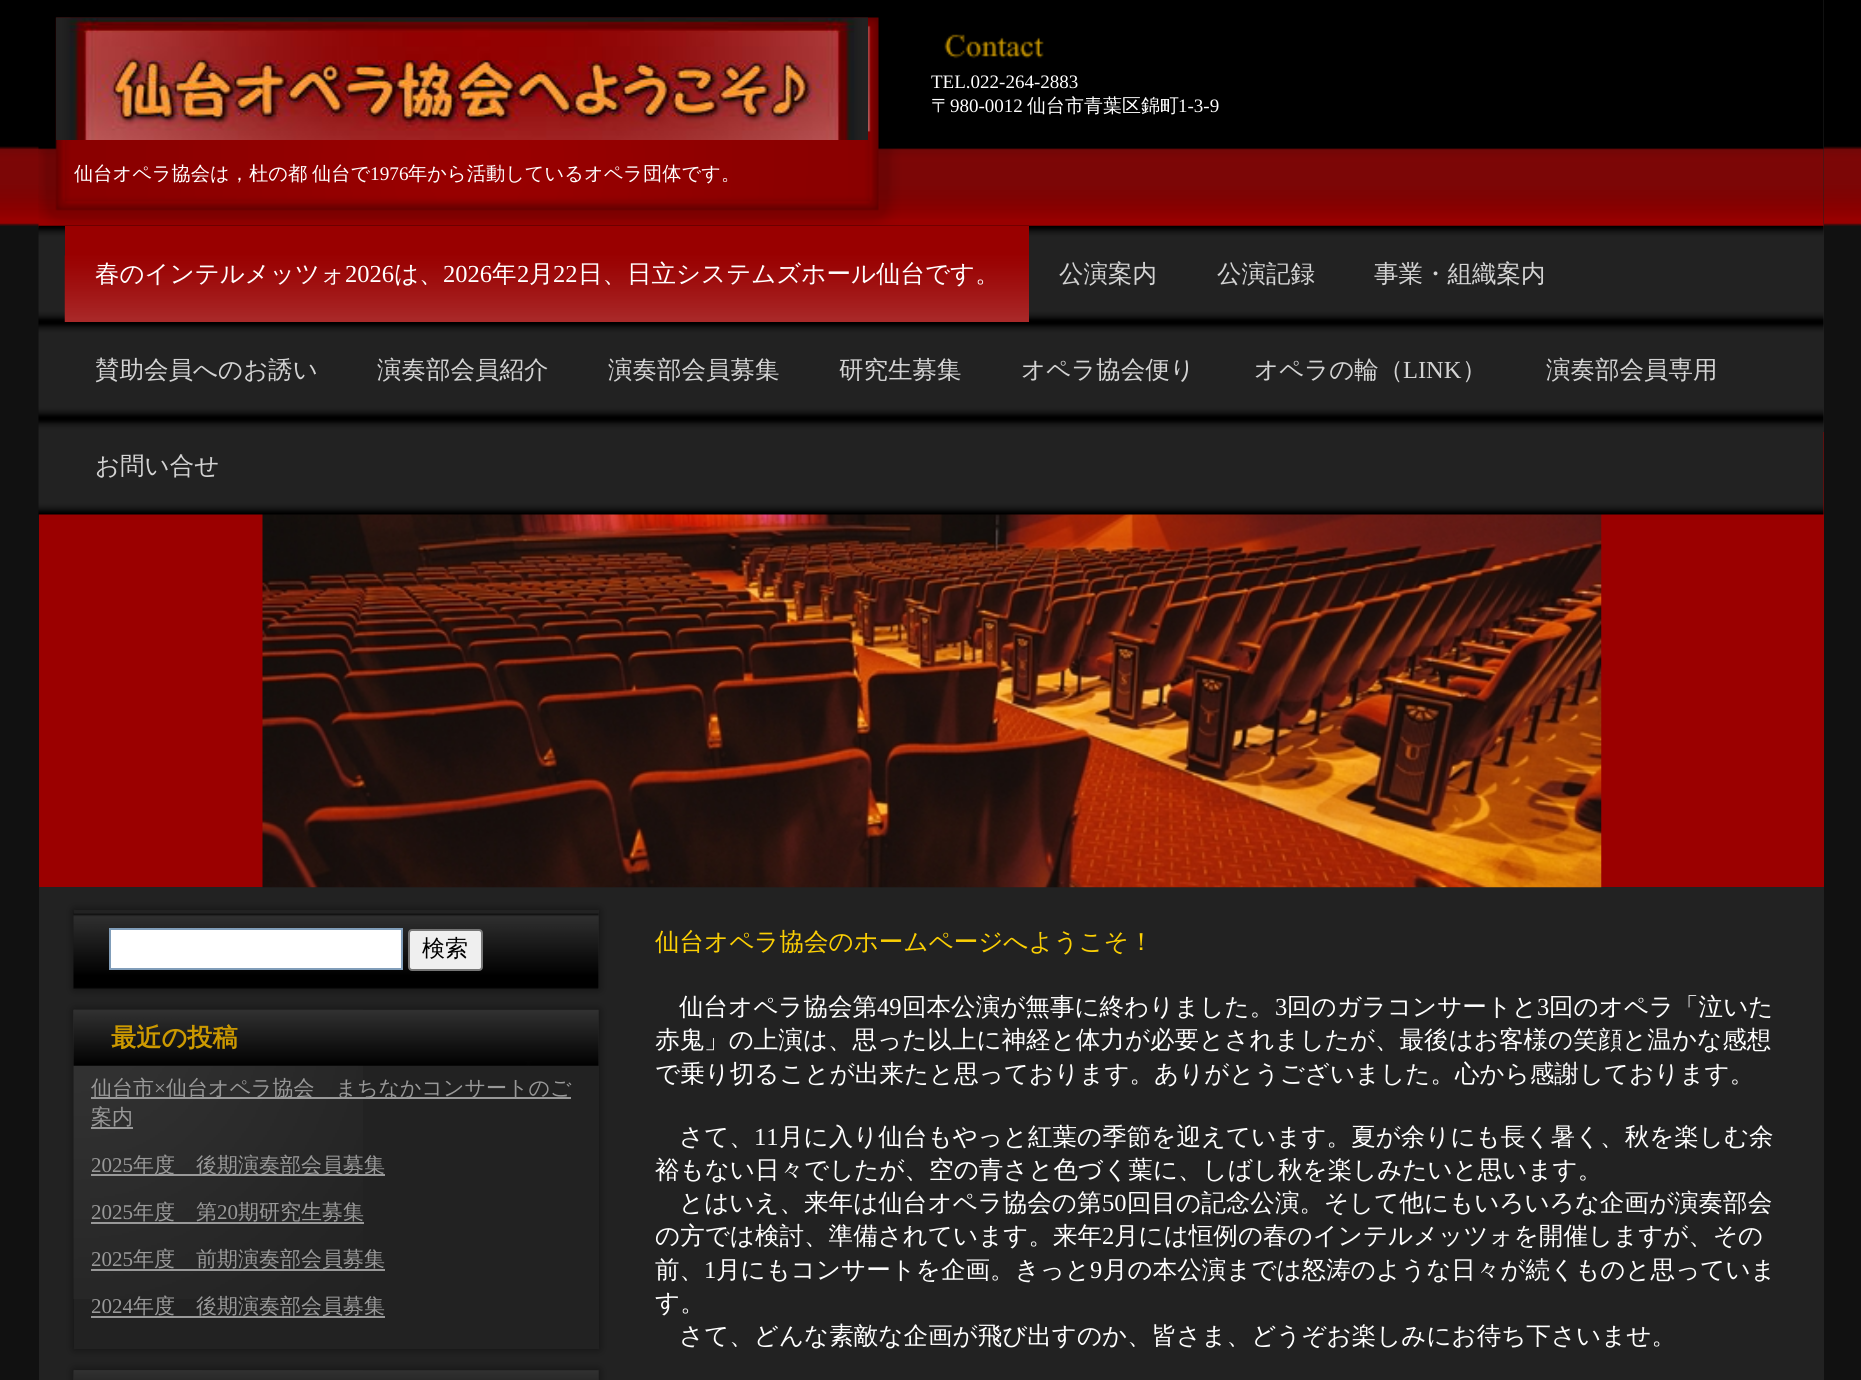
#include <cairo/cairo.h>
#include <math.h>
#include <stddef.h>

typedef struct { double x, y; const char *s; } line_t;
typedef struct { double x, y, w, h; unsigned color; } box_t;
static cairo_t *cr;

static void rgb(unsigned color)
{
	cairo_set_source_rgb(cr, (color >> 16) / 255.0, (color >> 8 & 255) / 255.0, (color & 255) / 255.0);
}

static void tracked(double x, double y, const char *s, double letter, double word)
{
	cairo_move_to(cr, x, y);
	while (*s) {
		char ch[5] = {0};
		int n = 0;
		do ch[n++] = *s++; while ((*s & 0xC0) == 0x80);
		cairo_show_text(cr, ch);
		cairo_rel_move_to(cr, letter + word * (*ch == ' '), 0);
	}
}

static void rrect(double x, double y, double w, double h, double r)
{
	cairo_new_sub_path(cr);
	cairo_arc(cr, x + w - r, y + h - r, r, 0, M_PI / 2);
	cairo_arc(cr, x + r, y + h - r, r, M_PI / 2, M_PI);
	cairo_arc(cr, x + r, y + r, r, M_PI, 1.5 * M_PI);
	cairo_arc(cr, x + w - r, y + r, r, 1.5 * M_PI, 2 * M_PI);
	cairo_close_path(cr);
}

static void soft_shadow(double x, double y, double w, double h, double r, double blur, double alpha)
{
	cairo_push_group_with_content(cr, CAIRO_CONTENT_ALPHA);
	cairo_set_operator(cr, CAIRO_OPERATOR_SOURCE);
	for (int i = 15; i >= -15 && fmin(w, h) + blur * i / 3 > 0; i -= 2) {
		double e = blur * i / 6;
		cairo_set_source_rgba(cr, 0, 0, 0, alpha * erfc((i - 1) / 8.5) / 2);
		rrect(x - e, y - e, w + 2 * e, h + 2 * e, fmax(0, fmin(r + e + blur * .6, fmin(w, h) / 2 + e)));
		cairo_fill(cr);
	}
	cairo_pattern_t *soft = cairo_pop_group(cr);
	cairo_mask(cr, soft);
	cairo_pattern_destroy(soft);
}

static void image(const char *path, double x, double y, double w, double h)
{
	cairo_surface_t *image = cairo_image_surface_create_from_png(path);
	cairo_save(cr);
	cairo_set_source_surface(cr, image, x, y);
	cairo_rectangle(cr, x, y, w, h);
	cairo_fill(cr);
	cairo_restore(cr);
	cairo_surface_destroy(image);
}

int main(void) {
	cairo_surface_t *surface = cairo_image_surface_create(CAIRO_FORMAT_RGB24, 1861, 1380);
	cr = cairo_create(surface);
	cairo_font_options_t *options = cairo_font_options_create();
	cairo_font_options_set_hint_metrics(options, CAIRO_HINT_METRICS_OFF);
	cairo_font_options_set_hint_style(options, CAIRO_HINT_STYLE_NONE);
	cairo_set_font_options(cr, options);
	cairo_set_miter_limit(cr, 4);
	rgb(0x111111);
	cairo_paint(cr);
	image("img/1.png", 0, 0, 1861, 226);
	rgb(0x222222);
	cairo_rectangle(cr, 39, 0, 1785, 1380);
	cairo_fill(cr);
	image("img/2.png", 38, 0, 1786, 228);
	image("img/3.png", 56, 17, 812, 123);
	rgb(0x9b0000);
	cairo_rectangle(cr, 39, 432, 1785, 455);
	cairo_fill(cr);
	image("img/11.png", 262, 514, 1340, 374);
	image("img/4.png", 38, 225, 1786, 290);
	rgb(0x990000);
	cairo_rectangle(cr, 65, 226, 964, 30);
	cairo_fill(cr);
	image("img/5.png", 64, 255, 965, 67);
	rgb(0x000000);
	soft_shadow(74, 910, 525, 79, 0, 4.5, 0.5);
	rgb(0x222222);
	cairo_rectangle(cr, 74, 910, 525, 79);
	cairo_fill(cr);
	image("img/6.png", 73, 913, 526, 76);
	rgb(0xffffff);
	cairo_rectangle(cr, 110, 929, 292, 40);
	cairo_fill_preserve(cr);
	rgb(0x809db9);
	cairo_stroke(cr);
	rgb(0xefefef);
	rrect(409, 930, 73, 40, 3);
	cairo_fill_preserve(cr);
	rgb(0x767676);
	cairo_stroke(cr);
	rgb(0x000000);
	soft_shadow(74, 1010, 525, 339, 0, 4.5, 0.5);
	rgb(0x222222);
	cairo_rectangle(cr, 74, 1010, 525, 339);
	cairo_fill(cr);
	image("img/7.png", 73, 1009, 290, 290);
	image("img/8.png", 73, 1009, 526, 57);
	{
		static const box_t items[] = {
			{91, 1097, 480, 2, 0x999999},
			{91, 1127, 42, 2, 0x999999},
			{91, 1174, 294, 2, 0x999999},
			{91, 1222, 273, 2, 0x999999},
			{91, 1269, 294, 2, 0x999999},
			{91, 1316, 294, 2, 0x999999},
		};
		for (size_t i = 0; i < sizeof items / sizeof *items; i++) {
			rgb(items[i].color);
			cairo_rectangle(cr, items[i].x, items[i].y, items[i].w, items[i].h);
			cairo_fill(cr);
		}
	}
	rgb(0x000000);
	soft_shadow(74, 1370, 525, 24, 0, 4.5, 0.5);
	rgb(0x222222);
	cairo_rectangle(cr, 74, 1370, 525, 10);
	cairo_fill(cr);
	image("img/9.png", 73, 1370, 290, 10);
	image("img/10.png", 74, 1370, 525, 10);
	cairo_select_font_face(cr, "Liberation Serif", CAIRO_FONT_SLANT_NORMAL, CAIRO_FONT_WEIGHT_NORMAL);
	cairo_set_font_size(cr, 19);
	rgb(0xffffff);
	cairo_move_to(cr, 931, 88);
	cairo_show_text(cr, "TEL.022-264-2883");
	cairo_select_font_face(cr, "WenQuanYi Zen Hei Medium", CAIRO_FONT_SLANT_NORMAL, CAIRO_FONT_WEIGHT_NORMAL);
	cairo_move_to(cr, 931, 112);
	cairo_show_text(cr, "〒");
	cairo_select_font_face(cr, "Liberation Serif", CAIRO_FONT_SLANT_NORMAL, CAIRO_FONT_WEIGHT_NORMAL);
	cairo_move_to(cr, 950, 112);
	cairo_show_text(cr, "980-0012");
	cairo_select_font_face(cr, "WenQuanYi Zen Hei Medium", CAIRO_FONT_SLANT_NORMAL, CAIRO_FONT_WEIGHT_NORMAL);
	cairo_move_to(cr, 1027, 112);
	cairo_show_text(cr, "仙台市青葉区錦町");
	cairo_select_font_face(cr, "Liberation Serif", CAIRO_FONT_SLANT_NORMAL, CAIRO_FONT_WEIGHT_NORMAL);
	cairo_move_to(cr, 1178, 112);
	cairo_show_text(cr, "1-3-9");
	cairo_select_font_face(cr, "WenQuanYi Zen Hei Medium", CAIRO_FONT_SLANT_NORMAL, CAIRO_FONT_WEIGHT_NORMAL);
	cairo_set_font_size(cr, 19.25);
	tracked(74, 180, "仙台オペラ協会は，杜の都 仙台で", 0, -1);
	cairo_select_font_face(cr, "Liberation Serif", CAIRO_FONT_SLANT_NORMAL, CAIRO_FONT_WEIGHT_NORMAL);
	cairo_move_to(cr, 370, 180);
	cairo_show_text(cr, "1976");
	cairo_select_font_face(cr, "WenQuanYi Zen Hei Medium", CAIRO_FONT_SLANT_NORMAL, CAIRO_FONT_WEIGHT_NORMAL);
	cairo_move_to(cr, 408, 180);
	cairo_show_text(cr, "年から活動しているオペラ団体です。");
	cairo_set_font_size(cr, 24.5);
	cairo_move_to(cr, 95, 282);
	cairo_show_text(cr, "春のインテルメッツォ");
	cairo_select_font_face(cr, "Liberation Serif", CAIRO_FONT_SLANT_NORMAL, CAIRO_FONT_WEIGHT_NORMAL);
	cairo_move_to(cr, 345, 282);
	cairo_show_text(cr, "2026");
	cairo_select_font_face(cr, "WenQuanYi Zen Hei Medium", CAIRO_FONT_SLANT_NORMAL, CAIRO_FONT_WEIGHT_NORMAL);
	cairo_move_to(cr, 394, 282);
	cairo_show_text(cr, "は、");
	cairo_select_font_face(cr, "Liberation Serif", CAIRO_FONT_SLANT_NORMAL, CAIRO_FONT_WEIGHT_NORMAL);
	cairo_move_to(cr, 443, 282);
	cairo_show_text(cr, "2026");
	cairo_select_font_face(cr, "WenQuanYi Zen Hei Medium", CAIRO_FONT_SLANT_NORMAL, CAIRO_FONT_WEIGHT_NORMAL);
	cairo_move_to(cr, 492, 282);
	cairo_show_text(cr, "年");
	cairo_select_font_face(cr, "Liberation Serif", CAIRO_FONT_SLANT_NORMAL, CAIRO_FONT_WEIGHT_NORMAL);
	cairo_move_to(cr, 517, 282);
	cairo_show_text(cr, "2");
	cairo_select_font_face(cr, "WenQuanYi Zen Hei Medium", CAIRO_FONT_SLANT_NORMAL, CAIRO_FONT_WEIGHT_NORMAL);
	cairo_move_to(cr, 529, 282);
	cairo_show_text(cr, "月");
	cairo_select_font_face(cr, "Liberation Serif", CAIRO_FONT_SLANT_NORMAL, CAIRO_FONT_WEIGHT_NORMAL);
	cairo_move_to(cr, 553, 282);
	cairo_show_text(cr, "22");
	cairo_select_font_face(cr, "WenQuanYi Zen Hei Medium", CAIRO_FONT_SLANT_NORMAL, CAIRO_FONT_WEIGHT_NORMAL);
	cairo_move_to(cr, 578, 282);
	cairo_show_text(cr, "日、日立システムズホール仙台です。");
	rgb(0xd3d3d3);
	{
		static const line_t items[] = {
			{1059, 282, "公演案内"},
			{1217, 282, "公演記録"},
			{1374, 282, "事業・組織案内"},
			{95, 378, "賛助会員へのお誘い"},
			{377, 378, "演奏部会員紹介"},
			{608, 378, "演奏部会員募集"},
			{839, 378, "研究生募集"},
			{1021, 378, "オペラ協会便り"},
			{1254, 378, "オペラの輪（"},
		};
		for (size_t i = 0; i < sizeof items / sizeof *items; i++) {
			cairo_move_to(cr, items[i].x, items[i].y);
			cairo_show_text(cr, items[i].s);
		}
	}
	cairo_select_font_face(cr, "Liberation Serif", CAIRO_FONT_SLANT_NORMAL, CAIRO_FONT_WEIGHT_NORMAL);
	cairo_move_to(cr, 1403, 378);
	cairo_show_text(cr, "LINK");
	cairo_select_font_face(cr, "WenQuanYi Zen Hei Medium", CAIRO_FONT_SLANT_NORMAL, CAIRO_FONT_WEIGHT_NORMAL);
	{
		static const line_t items[] = {
			{1462, 378, "）"},
			{1546, 378, "演奏部会員専用"},
			{95, 474, "お問い合せ"},
		};
		for (size_t i = 0; i < sizeof items / sizeof *items; i++) {
			cairo_move_to(cr, items[i].x, items[i].y);
			cairo_show_text(cr, items[i].s);
		}
	}
	cairo_set_font_size(cr, 23);
	rgb(0x000000);
	cairo_move_to(cr, 422, 956);
	cairo_show_text(cr, "検索");
	cairo_select_font_face(cr, "WenQuanYi Zen Hei", CAIRO_FONT_SLANT_NORMAL, CAIRO_FONT_WEIGHT_BOLD);
	cairo_set_font_size(cr, 25.25);
	rgb(0xcc9900);
	cairo_move_to(cr, 111, 1046);
	cairo_show_text(cr, "最近の投稿");
	cairo_select_font_face(cr, "WenQuanYi Zen Hei Medium", CAIRO_FONT_SLANT_NORMAL, CAIRO_FONT_WEIGHT_NORMAL);
	cairo_set_font_size(cr, 21);
	rgb(0x999999);
	cairo_move_to(cr, 91, 1095);
	cairo_show_text(cr, "仙台市");
	cairo_select_font_face(cr, "Liberation Serif", CAIRO_FONT_SLANT_NORMAL, CAIRO_FONT_WEIGHT_NORMAL);
	cairo_move_to(cr, 154, 1095);
	cairo_show_text(cr, "×");
	cairo_select_font_face(cr, "WenQuanYi Zen Hei Medium", CAIRO_FONT_SLANT_NORMAL, CAIRO_FONT_WEIGHT_NORMAL);
	cairo_move_to(cr, 166, 1095);
	cairo_show_text(cr, "仙台オペラ協会　まちなかコンサートのご");
	cairo_move_to(cr, 91, 1124);
	cairo_show_text(cr, "案内");
	cairo_select_font_face(cr, "Liberation Serif", CAIRO_FONT_SLANT_NORMAL, CAIRO_FONT_WEIGHT_NORMAL);
	cairo_move_to(cr, 91, 1172);
	cairo_show_text(cr, "2025");
	cairo_select_font_face(cr, "WenQuanYi Zen Hei Medium", CAIRO_FONT_SLANT_NORMAL, CAIRO_FONT_WEIGHT_NORMAL);
	cairo_move_to(cr, 133, 1172);
	cairo_show_text(cr, "年度　後期演奏部会員募集");
	cairo_select_font_face(cr, "Liberation Serif", CAIRO_FONT_SLANT_NORMAL, CAIRO_FONT_WEIGHT_NORMAL);
	cairo_move_to(cr, 91, 1219);
	cairo_show_text(cr, "2025");
	cairo_select_font_face(cr, "WenQuanYi Zen Hei Medium", CAIRO_FONT_SLANT_NORMAL, CAIRO_FONT_WEIGHT_NORMAL);
	cairo_move_to(cr, 133, 1219);
	cairo_show_text(cr, "年度　第");
	cairo_select_font_face(cr, "Liberation Serif", CAIRO_FONT_SLANT_NORMAL, CAIRO_FONT_WEIGHT_NORMAL);
	cairo_move_to(cr, 217, 1219);
	cairo_show_text(cr, "20");
	cairo_select_font_face(cr, "WenQuanYi Zen Hei Medium", CAIRO_FONT_SLANT_NORMAL, CAIRO_FONT_WEIGHT_NORMAL);
	cairo_move_to(cr, 238, 1219);
	cairo_show_text(cr, "期研究生募集");
	cairo_select_font_face(cr, "Liberation Serif", CAIRO_FONT_SLANT_NORMAL, CAIRO_FONT_WEIGHT_NORMAL);
	cairo_move_to(cr, 91, 1266);
	cairo_show_text(cr, "2025");
	cairo_select_font_face(cr, "WenQuanYi Zen Hei Medium", CAIRO_FONT_SLANT_NORMAL, CAIRO_FONT_WEIGHT_NORMAL);
	cairo_move_to(cr, 133, 1266);
	cairo_show_text(cr, "年度　前期演奏部会員募集");
	cairo_select_font_face(cr, "Liberation Serif", CAIRO_FONT_SLANT_NORMAL, CAIRO_FONT_WEIGHT_NORMAL);
	cairo_move_to(cr, 91, 1313);
	cairo_show_text(cr, "2024");
	cairo_select_font_face(cr, "WenQuanYi Zen Hei Medium", CAIRO_FONT_SLANT_NORMAL, CAIRO_FONT_WEIGHT_NORMAL);
	cairo_move_to(cr, 133, 1313);
	cairo_show_text(cr, "年度　後期演奏部会員募集");
	cairo_set_font_size(cr, 24.55);
	rgb(0xfbcf04);
	cairo_move_to(cr, 655, 950);
	cairo_show_text(cr, "仙台オペラ協会のホームページへようこそ！");
	rgb(0xffffff);
	cairo_move_to(cr, 679, 1015);
	cairo_show_text(cr, "仙台オペラ協会第");
	cairo_select_font_face(cr, "Liberation Serif", CAIRO_FONT_SLANT_NORMAL, CAIRO_FONT_WEIGHT_NORMAL);
	cairo_move_to(cr, 877, 1015);
	cairo_show_text(cr, "49");
	cairo_select_font_face(cr, "WenQuanYi Zen Hei Medium", CAIRO_FONT_SLANT_NORMAL, CAIRO_FONT_WEIGHT_NORMAL);
	cairo_move_to(cr, 902, 1015);
	cairo_show_text(cr, "回本公演が無事に終わりました。");
	cairo_select_font_face(cr, "Liberation Serif", CAIRO_FONT_SLANT_NORMAL, CAIRO_FONT_WEIGHT_NORMAL);
	cairo_move_to(cr, 1275, 1015);
	cairo_show_text(cr, "3");
	cairo_select_font_face(cr, "WenQuanYi Zen Hei Medium", CAIRO_FONT_SLANT_NORMAL, CAIRO_FONT_WEIGHT_NORMAL);
	cairo_move_to(cr, 1287, 1015);
	cairo_show_text(cr, "回のガラコンサートと");
	cairo_select_font_face(cr, "Liberation Serif", CAIRO_FONT_SLANT_NORMAL, CAIRO_FONT_WEIGHT_NORMAL);
	cairo_move_to(cr, 1537, 1015);
	cairo_show_text(cr, "3");
	cairo_select_font_face(cr, "WenQuanYi Zen Hei Medium", CAIRO_FONT_SLANT_NORMAL, CAIRO_FONT_WEIGHT_NORMAL);
	{
		static const line_t items[] = {
			{1549, 1015, "回のオペラ「泣いた"},
			{655, 1048, "赤鬼」の上演は、思った以上に神経と体力が必要とされましたが、最後はお客様の笑顔と温かな感想"},
			{655, 1082, "で乗り切ることが出来たと思っております。ありがとうございました。心から感謝しております。"},
			{679, 1145, "さて、"},
		};
		for (size_t i = 0; i < sizeof items / sizeof *items; i++) {
			cairo_move_to(cr, items[i].x, items[i].y);
			cairo_show_text(cr, items[i].s);
		}
	}
	cairo_select_font_face(cr, "Liberation Serif", CAIRO_FONT_SLANT_NORMAL, CAIRO_FONT_WEIGHT_NORMAL);
	cairo_move_to(cr, 754, 1145);
	cairo_show_text(cr, "11");
	cairo_select_font_face(cr, "WenQuanYi Zen Hei Medium", CAIRO_FONT_SLANT_NORMAL, CAIRO_FONT_WEIGHT_NORMAL);
	{
		static const line_t items[] = {
			{779, 1145, "月に入り仙台もやっと紅葉の季節を迎えています。夏が余りにも長く暑く、秋を楽しむ余"},
			{655, 1178, "裕もない日々でしたが、空の青さと色づく葉に、しばし秋を楽しみたいと思います。"},
			{679, 1211, "とはいえ、来年は仙台オペラ協会の第"},
		};
		for (size_t i = 0; i < sizeof items / sizeof *items; i++) {
			cairo_move_to(cr, items[i].x, items[i].y);
			cairo_show_text(cr, items[i].s);
		}
	}
	cairo_select_font_face(cr, "Liberation Serif", CAIRO_FONT_SLANT_NORMAL, CAIRO_FONT_WEIGHT_NORMAL);
	cairo_move_to(cr, 1102, 1211);
	cairo_show_text(cr, "50");
	cairo_select_font_face(cr, "WenQuanYi Zen Hei Medium", CAIRO_FONT_SLANT_NORMAL, CAIRO_FONT_WEIGHT_NORMAL);
	cairo_move_to(cr, 1127, 1211);
	cairo_show_text(cr, "回目の記念公演。そして他にもいろいろな企画が演奏部会");
	cairo_move_to(cr, 655, 1244);
	cairo_show_text(cr, "の方では検討、準備されています。来年");
	cairo_select_font_face(cr, "Liberation Serif", CAIRO_FONT_SLANT_NORMAL, CAIRO_FONT_WEIGHT_NORMAL);
	cairo_move_to(cr, 1102, 1244);
	cairo_show_text(cr, "2");
	cairo_select_font_face(cr, "WenQuanYi Zen Hei Medium", CAIRO_FONT_SLANT_NORMAL, CAIRO_FONT_WEIGHT_NORMAL);
	cairo_move_to(cr, 1114, 1244);
	cairo_show_text(cr, "月には恒例の春のインテルメッツォを開催しますが、その");
	cairo_move_to(cr, 655, 1278);
	cairo_show_text(cr, "前、");
	cairo_select_font_face(cr, "Liberation Serif", CAIRO_FONT_SLANT_NORMAL, CAIRO_FONT_WEIGHT_NORMAL);
	cairo_move_to(cr, 704, 1278);
	cairo_show_text(cr, "1");
	cairo_select_font_face(cr, "WenQuanYi Zen Hei Medium", CAIRO_FONT_SLANT_NORMAL, CAIRO_FONT_WEIGHT_NORMAL);
	cairo_move_to(cr, 716, 1278);
	cairo_show_text(cr, "月にもコンサートを企画。きっと");
	cairo_select_font_face(cr, "Liberation Serif", CAIRO_FONT_SLANT_NORMAL, CAIRO_FONT_WEIGHT_NORMAL);
	cairo_move_to(cr, 1090, 1278);
	cairo_show_text(cr, "9");
	cairo_select_font_face(cr, "WenQuanYi Zen Hei Medium", CAIRO_FONT_SLANT_NORMAL, CAIRO_FONT_WEIGHT_NORMAL);
	{
		static const line_t items[] = {
			{1103, 1278, "月の本公演までは怒涛のような日々が続くものと思っていま"},
			{655, 1311, "す。"},
			{679, 1344, "さて、どんな素敵な企画が飛び出すのか、皆さま、どうぞお楽しみにお待ち下さいませ。"},
		};
		for (size_t i = 0; i < sizeof items / sizeof *items; i++) {
			cairo_move_to(cr, items[i].x, items[i].y);
			cairo_show_text(cr, items[i].s);
		}
	}
	cairo_surface_write_to_png(surface, "page.png");
	cairo_font_options_destroy(options);
	cairo_destroy(cr);
	cairo_surface_destroy(surface);
	return 0;
}
